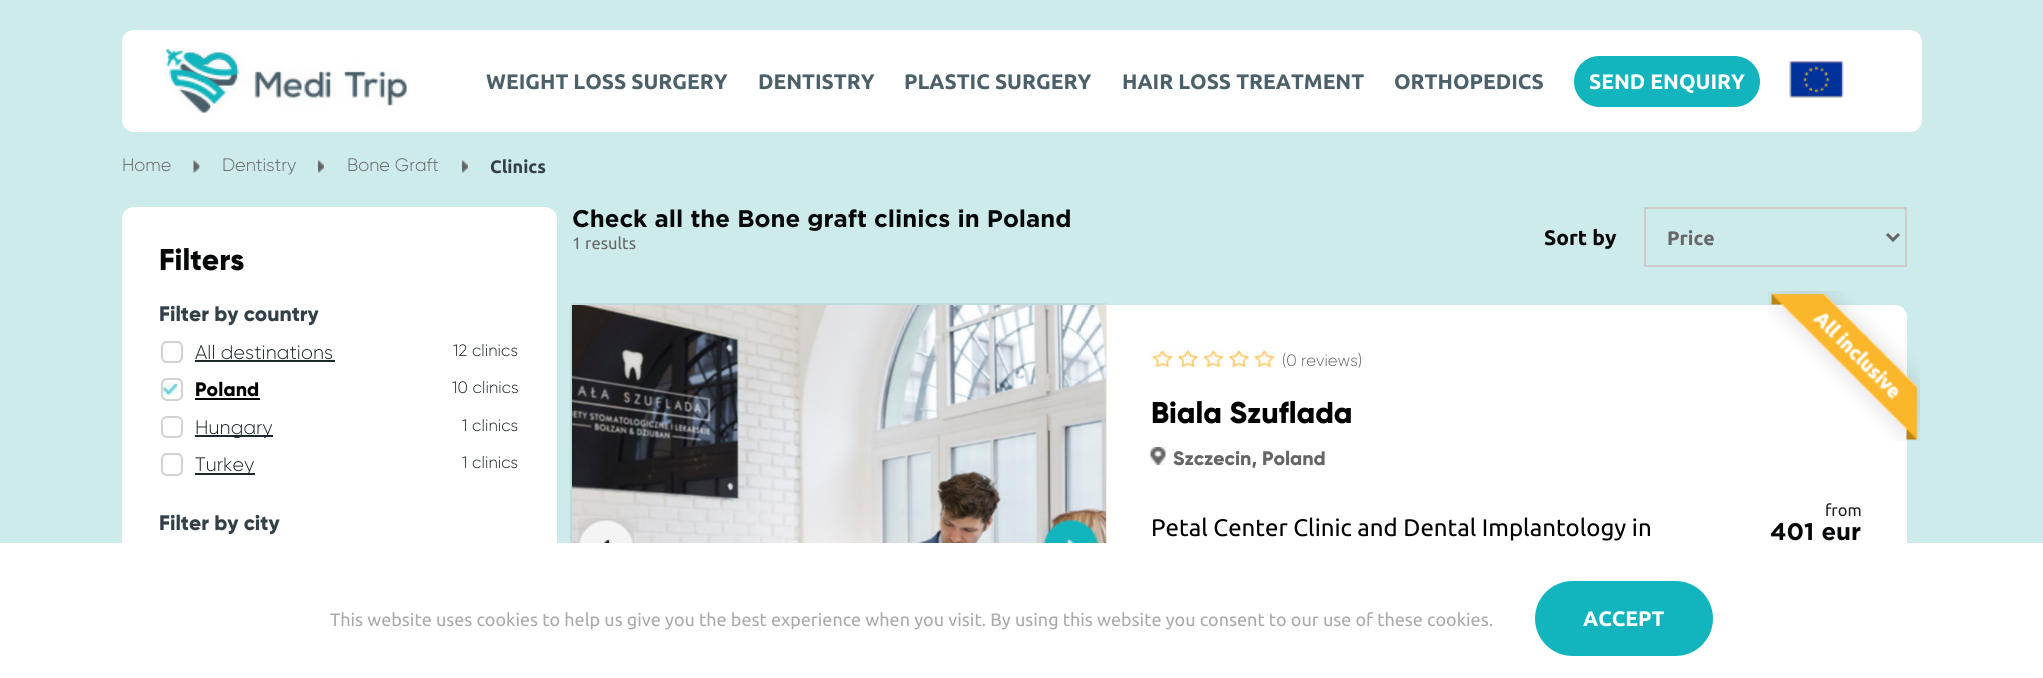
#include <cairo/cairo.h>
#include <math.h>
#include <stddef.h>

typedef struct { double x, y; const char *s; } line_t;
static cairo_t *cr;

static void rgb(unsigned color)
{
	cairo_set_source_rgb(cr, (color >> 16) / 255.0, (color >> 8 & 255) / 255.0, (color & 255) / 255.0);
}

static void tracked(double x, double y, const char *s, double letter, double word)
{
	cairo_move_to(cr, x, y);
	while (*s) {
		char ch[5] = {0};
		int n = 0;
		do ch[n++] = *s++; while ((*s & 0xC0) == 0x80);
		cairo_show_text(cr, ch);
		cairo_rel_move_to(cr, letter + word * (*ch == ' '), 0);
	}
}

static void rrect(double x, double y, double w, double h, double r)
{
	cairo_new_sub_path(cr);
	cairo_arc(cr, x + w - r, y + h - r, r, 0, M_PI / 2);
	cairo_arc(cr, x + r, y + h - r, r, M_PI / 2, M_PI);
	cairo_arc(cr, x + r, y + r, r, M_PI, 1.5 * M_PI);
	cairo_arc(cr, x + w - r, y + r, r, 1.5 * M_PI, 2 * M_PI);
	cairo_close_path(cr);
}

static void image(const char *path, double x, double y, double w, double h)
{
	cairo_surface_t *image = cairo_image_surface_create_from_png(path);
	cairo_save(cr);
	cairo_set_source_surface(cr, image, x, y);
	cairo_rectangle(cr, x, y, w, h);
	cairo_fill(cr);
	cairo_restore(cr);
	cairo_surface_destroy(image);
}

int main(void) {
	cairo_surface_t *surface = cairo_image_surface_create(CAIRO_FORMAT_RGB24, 2043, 678);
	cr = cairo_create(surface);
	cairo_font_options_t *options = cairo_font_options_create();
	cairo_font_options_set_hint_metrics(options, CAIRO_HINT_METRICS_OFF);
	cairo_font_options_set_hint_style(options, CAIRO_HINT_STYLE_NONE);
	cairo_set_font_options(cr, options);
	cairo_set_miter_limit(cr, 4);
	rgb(0xcdebeb);
	cairo_paint(cr);
	rgb(0xffffff);
	rrect(122, 30, 1800, 102, 12);
	cairo_fill(cr);
	image("img/1.png", 166, 49, 241, 64);
	rgb(0x12b5be);
	rrect(1574, 56, 186, 51, 25.5);
	cairo_fill(cr);
	image("img/2.png", 1789, 60, 55, 38);
	image("img/3.png", 193, 160, 7, 13);
	image("img/4.png", 318, 160, 6, 13);
	image("img/4.png", 462, 160, 6, 13);
	rgb(0xffffff);
	rrect(122, 207, 435, 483, 12);
	cairo_fill(cr);
	rrect(162, 342, 20, 20, 5);
	rgb(0xd2d2d2);
	cairo_stroke(cr);
	rgb(0x1e282b);
	cairo_rectangle(cr, 195, 360, 140, 2);
	cairo_fill(cr);
	rrect(162, 379, 20, 21, 5);
	rgb(0xd2d2d2);
	cairo_stroke(cr);
	rgb(0x000000);
	cairo_rectangle(cr, 195, 398, 65, 2);
	cairo_fill(cr);
	image("img/5.png", 163, 382, 14, 14);
	rrect(162, 417, 20, 20, 5);
	rgb(0xd2d2d2);
	cairo_stroke(cr);
	rgb(0x1e282b);
	cairo_rectangle(cr, 195, 435, 78, 2);
	cairo_fill(cr);
	rrect(162, 454, 20, 21, 5);
	rgb(0xd2d2d2);
	cairo_stroke(cr);
	rgb(0x1e282b);
	cairo_rectangle(cr, 195, 473, 60, 2);
	cairo_fill(cr);
	cairo_rectangle(cr, 1645, 208, 261, 58);
	rgb(0xcccccc);
	cairo_stroke(cr);
	cairo_new_path(cr);
	cairo_move_to(cr, 1887, 234);
	cairo_line_to(cr, 1893, 240);
	cairo_line_to(cr, 1899, 234);
	rgb(0x666666);
	cairo_set_line_width(cr, 3);
	cairo_stroke(cr);
	rgb(0xffffff);
	rrect(572, 305, 1335, 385, 12);
	cairo_fill(cr);
	image("img/6.png", 570, 303, 537, 240);
	image("img/7.png", 1104, 533, 3, 10);
	image("img/8.png", 578, 518, 56, 25);
	image("img/9.png", 1042, 518, 58, 25);
	image("img/10.png", 1768, 291, 152, 150);
	image("img/11.png", 1151, 350, 22, 18);
	image("img/12.png", 1177, 350, 22, 18);
	image("img/11.png", 1202, 350, 22, 18);
	image("img/13.png", 1228, 350, 22, 18);
	image("img/11.png", 1253, 350, 22, 18);
	image("img/14.png", 1150, 447, 16, 18);
	cairo_rectangle(cr, 0, 543, 2043, 135);
	cairo_fill(cr);
	rgb(0x12b5be);
	rrect(1535, 581, 178, 75, 37.5);
	cairo_fill(cr);
	cairo_select_font_face(cr, "Ubuntu", CAIRO_FONT_SLANT_NORMAL, CAIRO_FONT_WEIGHT_BOLD);
	cairo_set_font_size(cr, 21);
	rgb(0x4b6069);
	{
		static const line_t items[] = {
			{486, 89, "WEIGHT LOSS SURGERY"},
			{758, 89, "DENTISTRY"},
			{904, 89, "PLASTIC SURGERY"},
			{1122, 89, "HAIR LOSS TREATMENT"},
			{1394, 89, "ORTHOPEDICS"},
		};
		for (size_t i = 0; i < sizeof items / sizeof *items; i++) {
			cairo_move_to(cr, items[i].x, items[i].y);
			cairo_show_text(cr, items[i].s);
		}
	}
	rgb(0xffffff);
	cairo_move_to(cr, 1589, 89);
	cairo_show_text(cr, "SEND ENQUIRY");
	cairo_select_font_face(cr, "Gilroy Light", CAIRO_FONT_SLANT_NORMAL, CAIRO_FONT_WEIGHT_NORMAL);
	cairo_set_font_size(cr, 18);
	rgb(0x666666);
	{
		static const line_t items[] = {
			{122, 171, "Home"},
			{222, 171, "Dentistry"},
			{347, 171, "Bone Graft"},
		};
		for (size_t i = 0; i < sizeof items / sizeof *items; i++) {
			cairo_move_to(cr, items[i].x, items[i].y);
			cairo_show_text(cr, items[i].s);
		}
	}
	cairo_select_font_face(cr, "Ubuntu", CAIRO_FONT_SLANT_NORMAL, CAIRO_FONT_WEIGHT_BOLD);
	rgb(0x334048);
	cairo_move_to(cr, 490, 173);
	cairo_show_text(cr, "Clinics");
	cairo_select_font_face(cr, "Gilroy ExtraBold", CAIRO_FONT_SLANT_NORMAL, CAIRO_FONT_WEIGHT_NORMAL);
	cairo_set_font_size(cr, 30);
	rgb(0x050708);
	cairo_move_to(cr, 159, 270);
	cairo_show_text(cr, "Filters");
	cairo_set_font_size(cr, 21);
	rgb(0x334048);
	cairo_move_to(cr, 159, 321);
	cairo_show_text(cr, "Filter by country");
	cairo_select_font_face(cr, "Gilroy Light", CAIRO_FONT_SLANT_NORMAL, CAIRO_FONT_WEIGHT_NORMAL);
	cairo_set_font_size(cr, 19.5);
	rgb(0x1e282b);
	tracked(195, 359, "All destinations", 0.1, 0);
	cairo_set_font_size(cr, 16.5);
	tracked(453, 356, "12 clinics", 0.1, 0);
	cairo_select_font_face(cr, "Gilroy ExtraBold", CAIRO_FONT_SLANT_NORMAL, CAIRO_FONT_WEIGHT_NORMAL);
	cairo_set_font_size(cr, 19.5);
	rgb(0x000000);
	tracked(195, 396, "Poland", 0.1, 0);
	cairo_select_font_face(cr, "Gilroy Light", CAIRO_FONT_SLANT_NORMAL, CAIRO_FONT_WEIGHT_NORMAL);
	cairo_set_font_size(cr, 16.5);
	rgb(0x1e282b);
	tracked(452, 393, "10 clinics", 0.1, 0);
	cairo_set_font_size(cr, 19.5);
	tracked(195, 434, "Hungary", 0.1, 0);
	cairo_set_font_size(cr, 16.5);
	tracked(462, 431, "1 clinics", 0.1, 0);
	cairo_set_font_size(cr, 19.5);
	tracked(195, 471, "Turkey", 0.1, 0);
	cairo_set_font_size(cr, 16.5);
	tracked(462, 468, "1 clinics", 0.1, 0);
	cairo_select_font_face(cr, "Gilroy ExtraBold", CAIRO_FONT_SLANT_NORMAL, CAIRO_FONT_WEIGHT_NORMAL);
	cairo_set_font_size(cr, 21);
	rgb(0x334048);
	cairo_move_to(cr, 159, 530);
	cairo_show_text(cr, "Filter by city");
	cairo_select_font_face(cr, "Gotham", CAIRO_FONT_SLANT_NORMAL, CAIRO_FONT_WEIGHT_BOLD);
	cairo_set_font_size(cr, 24);
	rgb(0x050708);
	cairo_move_to(cr, 572, 227);
	cairo_show_text(cr, "Check all the Bone graft clinics in Poland");
	cairo_select_font_face(cr, "Ubuntu", CAIRO_FONT_SLANT_NORMAL, CAIRO_FONT_WEIGHT_NORMAL);
	cairo_set_font_size(cr, 16.5);
	rgb(0x666666);
	cairo_move_to(cr, 572, 249);
	cairo_show_text(cr, "1 results");
	cairo_select_font_face(cr, "Ubuntu", CAIRO_FONT_SLANT_NORMAL, CAIRO_FONT_WEIGHT_BOLD);
	cairo_set_font_size(cr, 21);
	rgb(0x050708);
	cairo_move_to(cr, 1544, 245);
	cairo_show_text(cr, "Sort by");
	cairo_set_font_size(cr, 19.5);
	rgb(0x666666);
	cairo_move_to(cr, 1667, 245);
	cairo_show_text(cr, "Price");
	cairo_select_font_face(cr, "Gilroy Light", CAIRO_FONT_SLANT_NORMAL, CAIRO_FONT_WEIGHT_NORMAL);
	cairo_set_font_size(cr, 16.5);
	cairo_move_to(cr, 1282, 366);
	cairo_show_text(cr, "(0 reviews)");
	cairo_select_font_face(cr, "Gilroy ExtraBold", CAIRO_FONT_SLANT_NORMAL, CAIRO_FONT_WEIGHT_NORMAL);
	cairo_set_font_size(cr, 30);
	rgb(0x000000);
	cairo_move_to(cr, 1151, 423);
	cairo_show_text(cr, "Biala Szuflada");
	cairo_set_font_size(cr, 19.5);
	rgb(0x666666);
	cairo_move_to(cr, 1173, 465);
	cairo_show_text(cr, "Szczecin, Poland");
	cairo_select_font_face(cr, "Ubuntu", CAIRO_FONT_SLANT_NORMAL, CAIRO_FONT_WEIGHT_NORMAL);
	cairo_set_font_size(cr, 24);
	rgb(0x000000);
	cairo_move_to(cr, 1151, 536);
	cairo_show_text(cr, "Petal Center Clinic and Dental Implantology in");
	cairo_set_font_size(cr, 16.5);
	rgb(0x231f20);
	cairo_move_to(cr, 1825, 516);
	cairo_show_text(cr, "from");
	cairo_select_font_face(cr, "Gotham", CAIRO_FONT_SLANT_NORMAL, CAIRO_FONT_WEIGHT_BOLD);
	cairo_set_font_size(cr, 24);
	rgb(0x050708);
	cairo_move_to(cr, 1770, 540);
	cairo_show_text(cr, "401 eur");
	cairo_select_font_face(cr, "Ubuntu", CAIRO_FONT_SLANT_NORMAL, CAIRO_FONT_WEIGHT_NORMAL);
	cairo_set_font_size(cr, 18);
	rgb(0xaaaaaa);
	cairo_move_to(cr, 330, 626);
	cairo_show_text(cr, "This website uses cookies to help us give you the best experience when you visit. By using this website you consent to our use of these cookies.");
	cairo_select_font_face(cr, "Ubuntu", CAIRO_FONT_SLANT_NORMAL, CAIRO_FONT_WEIGHT_BOLD);
	cairo_set_font_size(cr, 21);
	rgb(0xffffff);
	cairo_move_to(cr, 1583, 626);
	cairo_show_text(cr, "ACCEPT");
	cairo_surface_write_to_png(surface, "page.png");
	cairo_font_options_destroy(options);
	cairo_destroy(cr);
	cairo_surface_destroy(surface);
	return 0;
}
